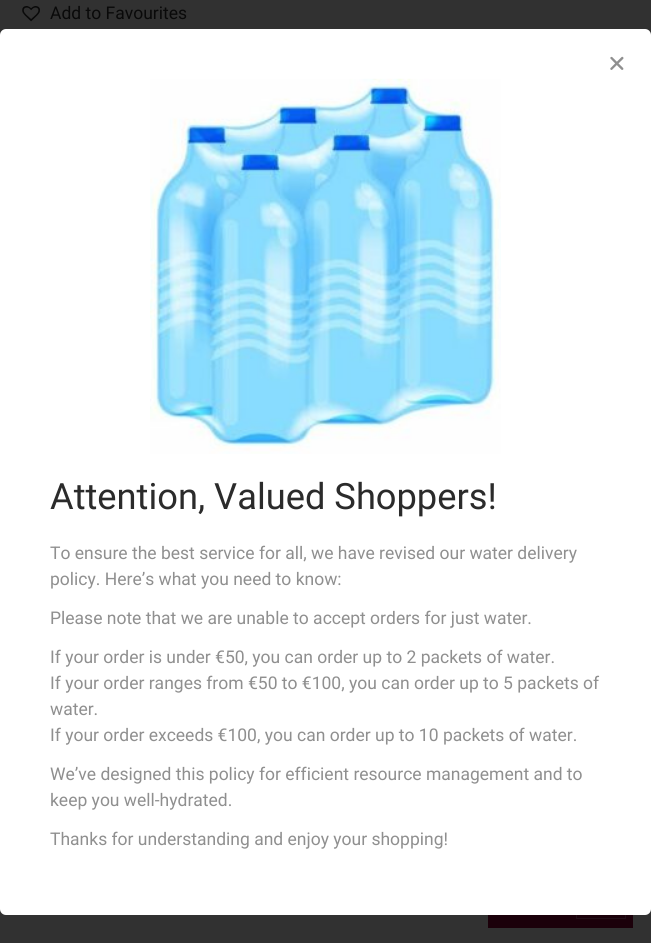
#include <cairo/cairo.h>
#include <math.h>
#include <stddef.h>

typedef struct { double x, y; const char *s; } line_t;
static cairo_t *cr;

static void rgb(unsigned color)
{
	cairo_set_source_rgb(cr, (color >> 16) / 255.0, (color >> 8 & 255) / 255.0, (color & 255) / 255.0);
}

static void rrect(double x, double y, double w, double h, double r)
{
	cairo_new_sub_path(cr);
	cairo_arc(cr, x + w - r, y + h - r, r, 0, M_PI / 2);
	cairo_arc(cr, x + r, y + h - r, r, M_PI / 2, M_PI);
	cairo_arc(cr, x + r, y + r, r, M_PI, 1.5 * M_PI);
	cairo_arc(cr, x + w - r, y + r, r, 1.5 * M_PI, 2 * M_PI);
	cairo_close_path(cr);
}

static void image(const char *path, double x, double y, double w, double h)
{
	cairo_surface_t *image = cairo_image_surface_create_from_png(path);
	cairo_save(cr);
	cairo_set_source_surface(cr, image, x, y);
	cairo_rectangle(cr, x, y, w, h);
	cairo_fill(cr);
	cairo_restore(cr);
	cairo_surface_destroy(image);
}

int main(void) {
	cairo_surface_t *surface = cairo_image_surface_create(CAIRO_FORMAT_RGB24, 651, 943);
	cr = cairo_create(surface);
	cairo_font_options_t *options = cairo_font_options_create();
	cairo_font_options_set_hint_metrics(options, CAIRO_HINT_METRICS_OFF);
	cairo_font_options_set_hint_style(options, CAIRO_HINT_STYLE_NONE);
	cairo_set_font_options(cr, options);
	cairo_set_miter_limit(cr, 4);
	rgb(0x313131);
	cairo_paint(cr);
	image("img/1.png", 22, 6, 18, 16);
	rgb(0x1b000a);
	cairo_rectangle(cr, 488, 915, 145, 13);
	cairo_fill(cr);
	cairo_rectangle(cr, 576.5, 869.5, 49, 49);
	rgb(0x220f17);
	cairo_set_line_width(cr, 1);
	cairo_stroke(cr);
	rgb(0xffffff);
	rrect(0, 29, 651, 886, 6);
	cairo_fill(cr);
	image("img/2.png", 610, 56, 14, 14);
	image("img/3.png", 150, 78, 351, 376);
	cairo_select_font_face(cr, "Roboto", CAIRO_FONT_SLANT_NORMAL, CAIRO_FONT_WEIGHT_NORMAL);
	cairo_set_font_size(cr, 17.5);
	rgb(0x090909);
	cairo_move_to(cr, 50, 19);
	cairo_show_text(cr, "Add to Favourites");
	cairo_set_font_size(cr, 36.25);
	rgb(0x2b2b2b);
	cairo_move_to(cr, 50, 509);
	cairo_show_text(cr, "Attention, Valued Shoppers!");
	cairo_set_font_size(cr, 17.5);
	rgb(0x8f8f8f);
	{
		static const line_t items[] = {
			{50, 559, "To ensure the best service for all, we have revised our water delivery"},
			{50, 585, "policy. Here’s what you need to know:"},
			{50, 624, "Please note that we are unable to accept orders for just water."},
			{50, 663, "If your order is under €50, you can order up to 2 packets of water."},
			{50, 689, "If your order ranges from €50 to €100, you can order up to 5 packets of"},
			{50, 715, "water."},
			{50, 741, "If your order exceeds €100, you can order up to 10 packets of water."},
			{50, 780, "We’ve designed this policy for efficient resource management and to"},
			{50, 806, "keep you well-hydrated."},
			{50, 845, "Thanks for understanding and enjoy your shopping!"},
		};
		for (size_t i = 0; i < sizeof items / sizeof *items; i++) {
			cairo_move_to(cr, items[i].x, items[i].y);
			cairo_show_text(cr, items[i].s);
		}
	}
	cairo_surface_write_to_png(surface, "page.png");
	cairo_font_options_destroy(options);
	cairo_destroy(cr);
	cairo_surface_destroy(surface);
	return 0;
}
